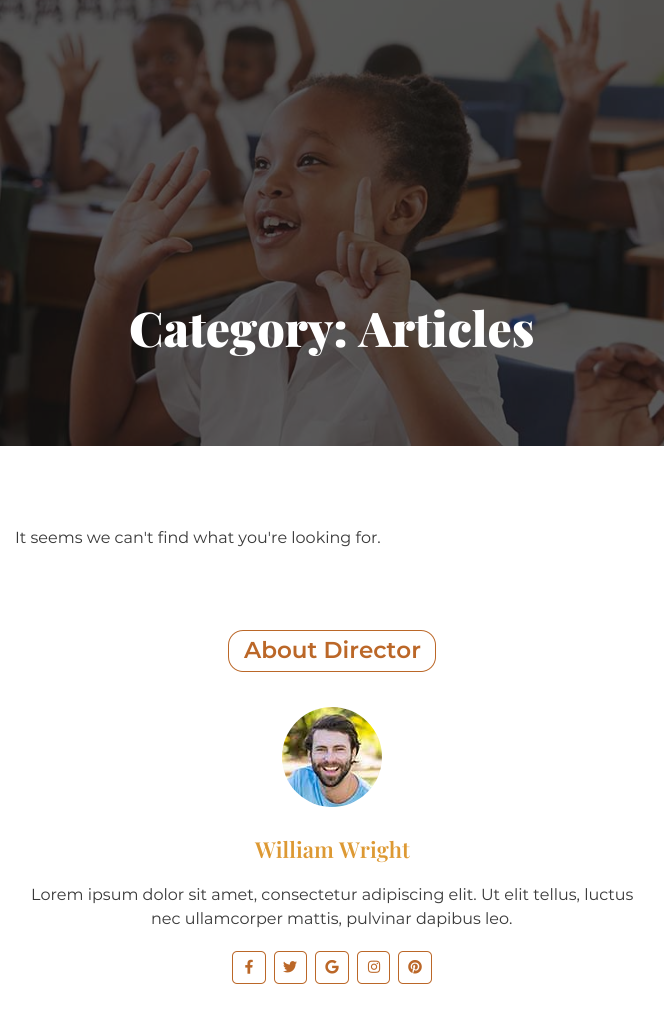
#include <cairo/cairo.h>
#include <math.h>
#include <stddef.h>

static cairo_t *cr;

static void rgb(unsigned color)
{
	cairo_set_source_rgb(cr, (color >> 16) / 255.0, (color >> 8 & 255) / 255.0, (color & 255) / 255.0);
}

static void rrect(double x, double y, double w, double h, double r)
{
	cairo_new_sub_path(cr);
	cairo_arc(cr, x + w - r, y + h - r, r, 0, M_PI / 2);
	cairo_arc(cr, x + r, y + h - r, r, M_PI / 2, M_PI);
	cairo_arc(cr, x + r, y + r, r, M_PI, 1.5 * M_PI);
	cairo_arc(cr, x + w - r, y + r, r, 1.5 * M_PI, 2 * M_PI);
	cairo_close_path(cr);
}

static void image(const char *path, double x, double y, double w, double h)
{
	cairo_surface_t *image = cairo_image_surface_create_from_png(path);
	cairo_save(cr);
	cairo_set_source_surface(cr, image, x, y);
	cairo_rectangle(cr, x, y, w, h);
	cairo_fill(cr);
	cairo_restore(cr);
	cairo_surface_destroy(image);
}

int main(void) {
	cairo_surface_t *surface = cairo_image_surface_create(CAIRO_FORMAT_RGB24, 664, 1020);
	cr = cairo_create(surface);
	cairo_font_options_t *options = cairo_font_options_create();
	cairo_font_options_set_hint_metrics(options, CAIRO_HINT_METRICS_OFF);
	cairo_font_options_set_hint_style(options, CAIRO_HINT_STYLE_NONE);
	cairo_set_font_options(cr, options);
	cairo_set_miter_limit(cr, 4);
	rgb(0xffffff);
	cairo_paint(cr);
	image("img/1.png", 0, 0, 664, 446);
	rrect(228.5, 630.5, 207, 41, 14.5);
	rgb(0xbb6728);
	cairo_set_line_width(cr, 1);
	cairo_stroke(cr);
	image("img/2.png", 282, 707, 100, 100);
	rrect(232.5, 951.5, 33, 32, 4.5);
	cairo_stroke(cr);
	image("img/3.png", 245, 959, 8, 15);
	rrect(274.5, 951.5, 32, 32, 4.5);
	cairo_stroke(cr);
	image("img/4.png", 283, 961, 14, 12);
	rrect(315.5, 951.5, 33, 32, 4.5);
	cairo_stroke(cr);
	image("img/5.png", 325, 960, 14, 14);
	rrect(357.5, 951.5, 32, 32, 4.5);
	cairo_stroke(cr);
	image("img/6.png", 367, 960, 14, 13);
	rrect(398.5, 951.5, 33, 32, 4.5);
	cairo_stroke(cr);
	image("img/7.png", 408, 960, 14, 14);
	cairo_select_font_face(cr, "Playfair Display Black", CAIRO_FONT_SLANT_NORMAL, CAIRO_FONT_WEIGHT_NORMAL);
	cairo_set_font_size(cr, 48);
	rgb(0xffffff);
	cairo_move_to(cr, 129, 347);
	cairo_show_text(cr, "Category: Articles");
	cairo_select_font_face(cr, "Montserrat", CAIRO_FONT_SLANT_NORMAL, CAIRO_FONT_WEIGHT_NORMAL);
	cairo_set_font_size(cr, 16);
	rgb(0x383838);
	cairo_move_to(cr, 15, 543);
	cairo_show_text(cr, "It seems we can't find what you're looking for.");
	cairo_select_font_face(cr, "Montserrat SemiBold", CAIRO_FONT_SLANT_NORMAL, CAIRO_FONT_WEIGHT_NORMAL);
	cairo_set_font_size(cr, 23);
	rgb(0xbb6728);
	cairo_move_to(cr, 244, 658);
	cairo_show_text(cr, "About Director");
	cairo_select_font_face(cr, "Playfair Display SemiBold", CAIRO_FONT_SLANT_NORMAL, CAIRO_FONT_WEIGHT_NORMAL);
	cairo_set_font_size(cr, 22);
	rgb(0xdd9933);
	cairo_move_to(cr, 255, 858);
	cairo_show_text(cr, "William Wright");
	cairo_select_font_face(cr, "Montserrat", CAIRO_FONT_SLANT_NORMAL, CAIRO_FONT_WEIGHT_NORMAL);
	cairo_set_font_size(cr, 16);
	rgb(0x383838);
	cairo_move_to(cr, 31, 900);
	cairo_show_text(cr, "Lorem ipsum dolor sit amet, consectetur adipiscing elit. Ut elit tellus, luctus");
	cairo_move_to(cr, 151, 924);
	cairo_show_text(cr, "nec ullamcorper mattis, pulvinar dapibus leo.");
	cairo_surface_write_to_png(surface, "page.png");
	cairo_font_options_destroy(options);
	cairo_destroy(cr);
	cairo_surface_destroy(surface);
	return 0;
}
